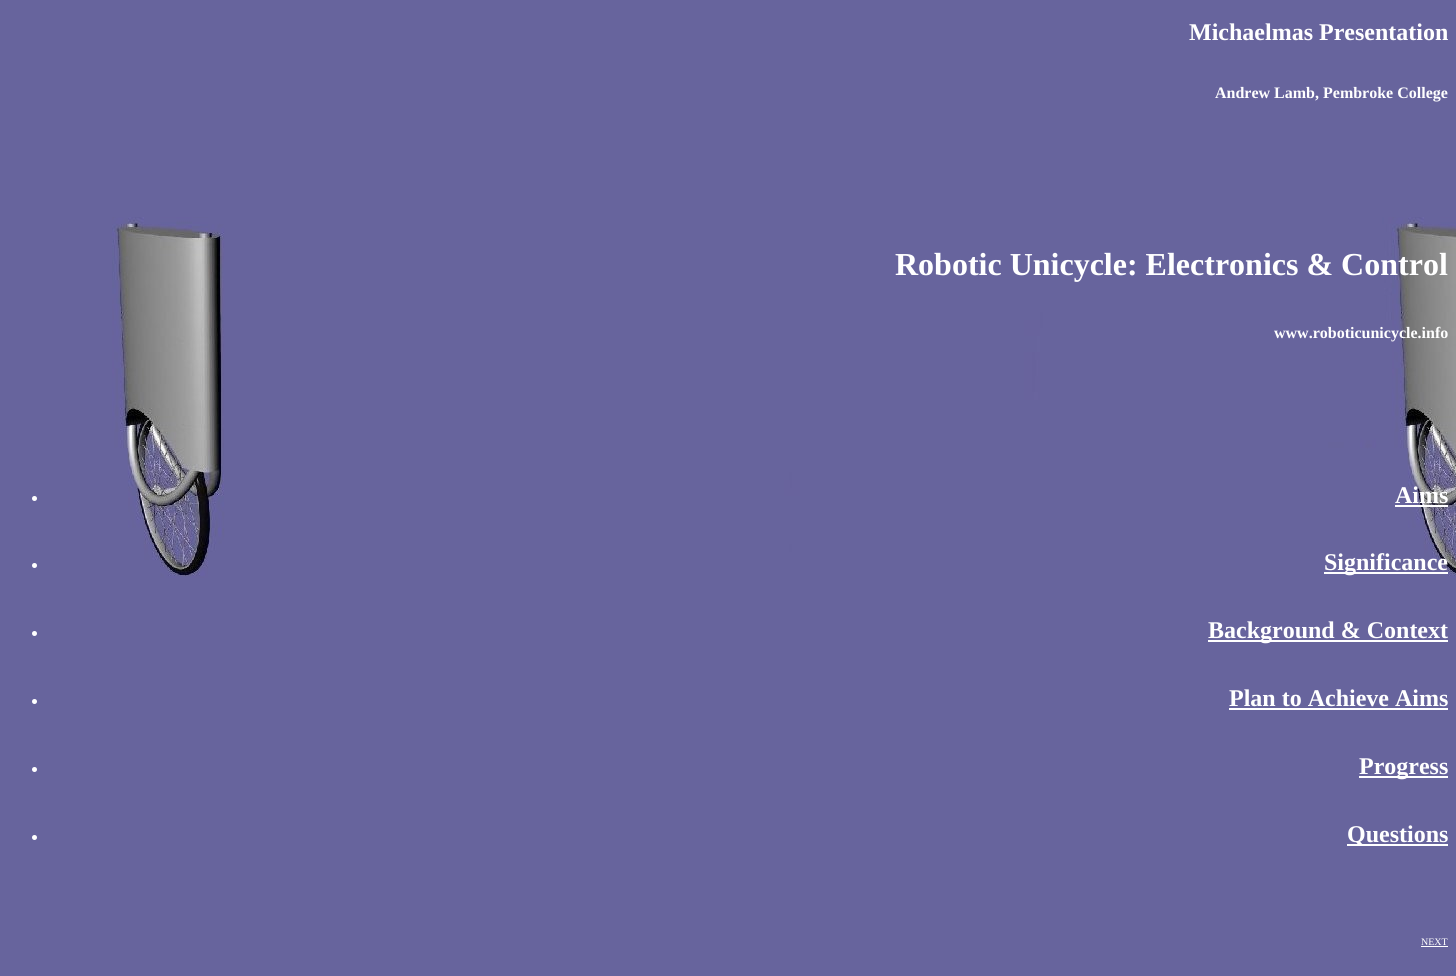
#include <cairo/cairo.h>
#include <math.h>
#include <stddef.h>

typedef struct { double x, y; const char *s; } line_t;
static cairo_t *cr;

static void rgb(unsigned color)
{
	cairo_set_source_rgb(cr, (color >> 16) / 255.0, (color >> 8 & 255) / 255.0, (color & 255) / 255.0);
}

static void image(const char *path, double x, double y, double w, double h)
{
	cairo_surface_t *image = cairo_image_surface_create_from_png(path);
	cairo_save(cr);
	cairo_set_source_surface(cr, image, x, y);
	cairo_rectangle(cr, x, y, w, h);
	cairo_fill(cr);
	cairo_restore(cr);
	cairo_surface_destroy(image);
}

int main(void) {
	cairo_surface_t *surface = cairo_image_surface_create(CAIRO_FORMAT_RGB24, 1456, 976);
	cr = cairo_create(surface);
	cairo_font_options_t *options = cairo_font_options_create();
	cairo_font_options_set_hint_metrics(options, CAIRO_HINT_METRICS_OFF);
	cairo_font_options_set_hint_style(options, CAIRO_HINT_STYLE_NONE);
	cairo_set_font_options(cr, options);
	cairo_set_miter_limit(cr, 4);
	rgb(0x67649d);
	cairo_paint(cr);
	image("img/1.png", 112, 217, 1344, 361);
	rgb(0xffffff);
	cairo_arc(cr, 34.5, 498.5, 2.5, 0, 2 * M_PI);
	cairo_fill(cr);
	cairo_rectangle(cr, 1395, 505, 53, 2);
	cairo_fill(cr);
	cairo_arc(cr, 34.5, 565.5, 2.5, 0, 2 * M_PI);
	cairo_fill(cr);
	cairo_rectangle(cr, 1324, 572, 124, 2);
	cairo_fill(cr);
	cairo_arc(cr, 34.5, 633.5, 2.5, 0, 2 * M_PI);
	cairo_fill(cr);
	cairo_rectangle(cr, 1208, 640, 240, 2);
	cairo_fill(cr);
	cairo_arc(cr, 34.5, 701.5, 2.5, 0, 2 * M_PI);
	cairo_fill(cr);
	cairo_rectangle(cr, 1229, 708, 219, 2);
	cairo_fill(cr);
	cairo_arc(cr, 34.5, 769.5, 2.5, 0, 2 * M_PI);
	cairo_fill(cr);
	cairo_rectangle(cr, 1359, 776, 89, 2);
	cairo_fill(cr);
	cairo_arc(cr, 34.5, 837.5, 2.5, 0, 2 * M_PI);
	cairo_fill(cr);
	cairo_rectangle(cr, 1347, 844, 101, 2);
	cairo_fill(cr);
	cairo_rectangle(cr, 1421, 946, 27, 1);
	cairo_fill(cr);
	cairo_select_font_face(cr, "Liberation Serif", CAIRO_FONT_SLANT_NORMAL, CAIRO_FONT_WEIGHT_BOLD);
	cairo_set_font_size(cr, 24);
	cairo_move_to(cr, 1189, 40);
	cairo_show_text(cr, "Michaelmas Presentation");
	cairo_set_font_size(cr, 16);
	cairo_move_to(cr, 1215, 98);
	cairo_show_text(cr, "Andrew Lamb, Pembroke College");
	cairo_set_font_size(cr, 32);
	cairo_move_to(cr, 895, 275);
	cairo_show_text(cr, "Robotic Unicycle: Electronics & Control");
	cairo_set_font_size(cr, 16);
	cairo_move_to(cr, 1274, 338);
	cairo_show_text(cr, "www.roboticunicycle.info");
	cairo_set_font_size(cr, 24);
	{
		static const line_t items[] = {
			{1395, 503, "Aims"},
			{1324, 570, "Significance"},
			{1208, 638, "Background & Context"},
			{1229, 706, "Plan to Achieve Aims"},
			{1359, 774, "Progress"},
			{1347, 842, "Questions"},
		};
		for (size_t i = 0; i < sizeof items / sizeof *items; i++) {
			cairo_move_to(cr, items[i].x, items[i].y);
			cairo_show_text(cr, items[i].s);
		}
	}
	cairo_select_font_face(cr, "Liberation Serif", CAIRO_FONT_SLANT_NORMAL, CAIRO_FONT_WEIGHT_NORMAL);
	cairo_set_font_size(cr, 10);
	cairo_move_to(cr, 1421, 945);
	cairo_show_text(cr, "NEXT");
	cairo_surface_write_to_png(surface, "page.png");
	cairo_font_options_destroy(options);
	cairo_destroy(cr);
	cairo_surface_destroy(surface);
	return 0;
}
